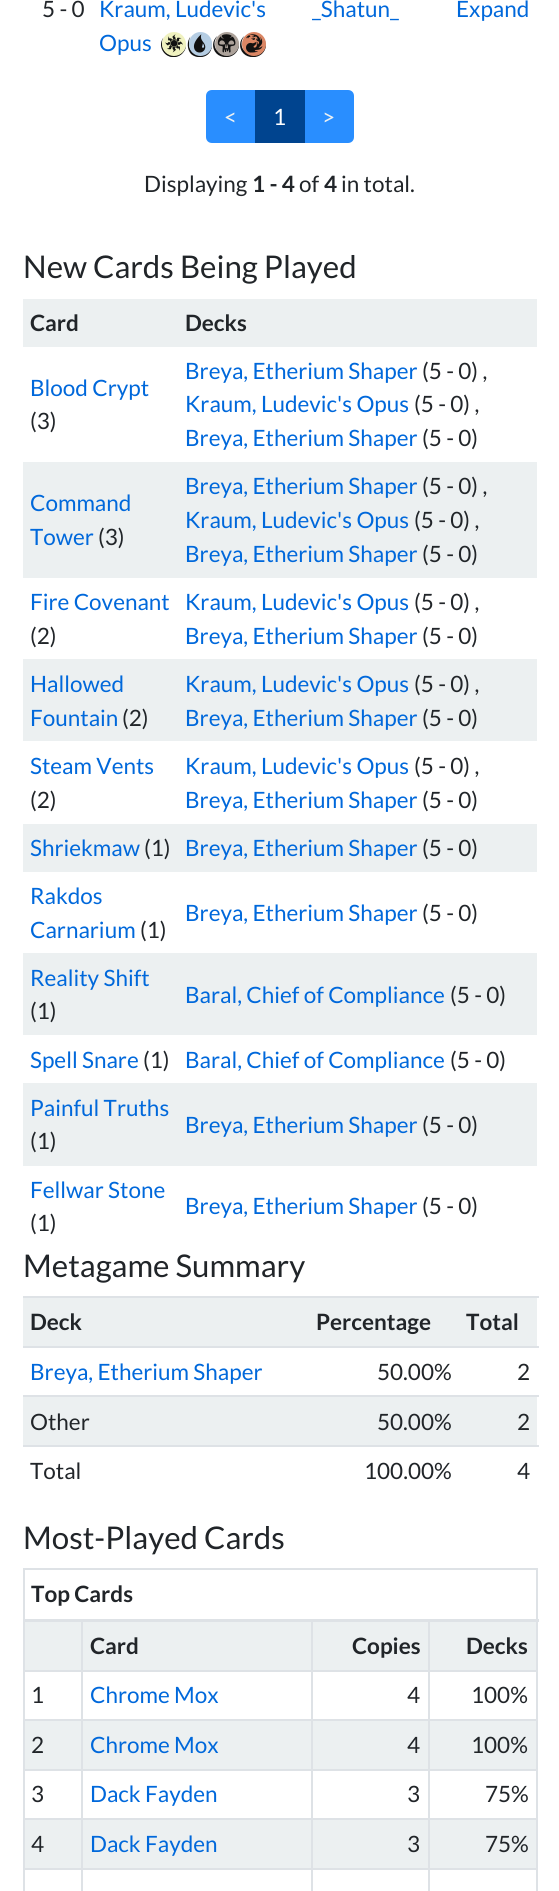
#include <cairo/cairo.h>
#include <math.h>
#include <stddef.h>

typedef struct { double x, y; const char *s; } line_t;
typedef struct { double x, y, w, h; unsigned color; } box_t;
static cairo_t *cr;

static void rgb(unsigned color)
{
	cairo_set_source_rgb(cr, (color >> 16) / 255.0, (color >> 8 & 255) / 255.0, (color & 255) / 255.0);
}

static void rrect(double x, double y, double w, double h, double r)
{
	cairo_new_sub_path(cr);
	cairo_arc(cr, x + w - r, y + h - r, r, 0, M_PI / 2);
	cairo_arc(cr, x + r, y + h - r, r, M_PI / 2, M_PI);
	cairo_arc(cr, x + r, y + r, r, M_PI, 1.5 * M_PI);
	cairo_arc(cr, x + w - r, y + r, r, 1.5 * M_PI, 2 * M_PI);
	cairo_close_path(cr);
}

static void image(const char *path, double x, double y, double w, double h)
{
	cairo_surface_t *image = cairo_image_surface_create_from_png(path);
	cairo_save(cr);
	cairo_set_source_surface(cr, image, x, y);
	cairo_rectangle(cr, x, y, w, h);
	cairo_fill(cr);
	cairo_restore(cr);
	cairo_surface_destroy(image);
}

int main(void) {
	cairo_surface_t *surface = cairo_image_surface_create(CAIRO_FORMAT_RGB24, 559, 1891);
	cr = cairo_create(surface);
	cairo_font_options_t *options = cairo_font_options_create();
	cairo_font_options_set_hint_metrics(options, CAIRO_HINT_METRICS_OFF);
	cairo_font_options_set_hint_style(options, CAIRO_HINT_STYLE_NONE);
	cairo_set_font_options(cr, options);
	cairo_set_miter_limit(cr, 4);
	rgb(0xffffff);
	cairo_paint(cr);
	rgb(0x111111);
	cairo_new_path(cr);
	cairo_move_to(cr, 162, 44);
	cairo_curve_to(cr, 161.5, 56.5, 177, 62, 184, 51.5);
	cairo_curve_to(cr, 185.5, 49.5, 186, 47, 186, 44);
	cairo_curve_to(cr, 185, 59, 163, 59, 162, 44);
	cairo_close_path(cr);
	cairo_fill(cr);
	cairo_new_path(cr);
	cairo_move_to(cr, 163.5, 37.5);
	cairo_curve_to(cr, 156, 47, 166.5, 61, 177.5, 56);
	cairo_curve_to(cr, 180, 55, 182, 53, 183.5, 51);
	cairo_curve_to(cr, 174.5, 62.5, 156.5, 50.5, 163.5, 37.5);
	cairo_close_path(cr);
	cairo_fill(cr);
	rgb(0xf0f2c0);
	cairo_arc(cr, 174, 44, 12, 0, 2 * M_PI);
	cairo_fill(cr);
	image("img/1.png", 165, 34, 18, 19);
	rgb(0x111111);
	cairo_new_path(cr);
	cairo_move_to(cr, 189, 44.5);
	cairo_curve_to(cr, 189, 60.5, 211, 61.5, 212, 45.5);
	cairo_curve_to(cr, 212, 44, 212, 42, 211.5, 40.5);
	cairo_curve_to(cr, 215, 58.5, 189, 60.5, 189, 44.5);
	cairo_close_path(cr);
	cairo_fill(cr);
	cairo_new_path(cr);
	cairo_move_to(cr, 208, 52.5);
	cairo_curve_to(cr, 202, 57.5, 193, 55.5, 190, 48.5);
	cairo_curve_to(cr, 189, 46.5, 189, 45, 189, 43);
	cairo_curve_to(cr, 189, 40.5, 189.5, 38.5, 190.5, 36.5);
	cairo_curve_to(cr, 186.5, 41.5, 187, 49.5, 191, 54);
	cairo_curve_to(cr, 196, 58.5, 204, 58, 208, 52.5);
	cairo_close_path(cr);
	cairo_fill(cr);
	rgb(0xb5cde3);
	rrect(189, 32, 23, 24, 11.5);
	cairo_fill(cr);
	image("img/2.png", 193, 34, 13, 19);
	rgb(0x111111);
	cairo_new_path(cr);
	cairo_move_to(cr, 215.5, 48);
	cairo_curve_to(cr, 216, 50.5, 217.5, 53, 219.5, 54.5);
	cairo_curve_to(cr, 229.5, 62, 242.5, 51.5, 238, 40.5);
	cairo_curve_to(cr, 242, 54.5, 221, 61.5, 215.5, 48);
	cairo_close_path(cr);
	cairo_fill(cr);
	cairo_new_path(cr);
	cairo_move_to(cr, 217.5, 36);
	cairo_curve_to(cr, 212, 40, 211.5, 48.5, 216.5, 53.5);
	cairo_curve_to(cr, 221.5, 58.5, 230, 58, 234, 52.5);
	cairo_curve_to(cr, 223, 62, 208, 47, 217.5, 36);
	cairo_close_path(cr);
	cairo_fill(cr);
	rgb(0xaca29a);
	cairo_arc(cr, 227, 44, 12, 0, 2 * M_PI);
	cairo_fill(cr);
	image("img/3.png", 217, 34, 19, 19);
	rgb(0x111111);
	cairo_new_path(cr);
	cairo_move_to(cr, 242.5, 48);
	cairo_curve_to(cr, 243, 50.5, 244.5, 53, 246.5, 54.5);
	cairo_curve_to(cr, 256.5, 62, 269.5, 51.5, 265, 40.5);
	cairo_curve_to(cr, 269, 54.5, 248, 61.5, 242.5, 48);
	cairo_close_path(cr);
	cairo_fill(cr);
	cairo_new_path(cr);
	cairo_move_to(cr, 244.5, 36);
	cairo_curve_to(cr, 239, 40, 238.5, 48.5, 243.5, 53.5);
	cairo_curve_to(cr, 248.5, 58.5, 257, 58, 261, 52.5);
	cairo_curve_to(cr, 250, 62, 235, 47, 244.5, 36);
	cairo_close_path(cr);
	cairo_fill(cr);
	rgb(0xdb8664);
	cairo_arc(cr, 254, 44, 12, 0, 2 * M_PI);
	cairo_fill(cr);
	image("img/4.png", 246, 34, 17, 19);
	rgb(0x298eff);
	cairo_new_path(cr);
	cairo_move_to(cr, 212, 90);
	cairo_line_to(cr, 255, 90);
	cairo_line_to(cr, 255, 143);
	cairo_line_to(cr, 212, 143);
	cairo_curve_to(cr, 208.5, 143, 206, 140.5, 206, 137);
	cairo_line_to(cr, 206, 96);
	cairo_curve_to(cr, 206, 92.5, 208.5, 90, 212, 90);
	cairo_close_path(cr);
	cairo_fill(cr);
	rgb(0x00448f);
	cairo_rectangle(cr, 255, 90, 50, 53);
	cairo_fill(cr);
	rgb(0x298eff);
	cairo_new_path(cr);
	cairo_move_to(cr, 305, 90);
	cairo_line_to(cr, 348, 90);
	cairo_curve_to(cr, 351.5, 90, 354, 92.5, 354, 96);
	cairo_line_to(cr, 354, 137);
	cairo_curve_to(cr, 354, 140.5, 351.5, 143, 348, 143);
	cairo_line_to(cr, 305, 143);
	cairo_close_path(cr);
	cairo_fill(cr);
	{
		static const box_t items[] = {
			{23, 299, 514, 48, 0xecf0f1},
			{23, 462, 514, 116, 0xecf0f1},
			{23, 659, 514, 82, 0xecf0f1},
			{23, 824, 514, 48, 0xecf0f1},
			{23, 953, 514, 82, 0xecf0f1},
			{23, 1083, 514, 83, 0xecf0f1},
			{23, 1298, 514, 48, 0xecf0f1},
			{23, 1296, 516, 2, 0xdee2e6},
			{23, 1346, 516, 2, 0xdee2e6},
			{23, 1397, 514, 48, 0xecf0f1},
			{23, 1395, 516, 2, 0xdee2e6},
			{23, 1445, 516, 2, 0xdee2e6},
			{23, 1568, 514, 2, 0xdee2e6},
			{536, 1568, 2, 323, 0xdee2e6},
			{23, 1568, 2, 323, 0xdee2e6},
			{25, 1622, 511, 48, 0xecf0f1},
			{428, 1670, 109, 2, 0xdee2e6},
			{428, 1719, 109, 2, 0xdee2e6},
			{25, 1721, 511, 48, 0xecf0f1},
			{428, 1769, 109, 2, 0xdee2e6},
			{428, 1818, 109, 2, 0xdee2e6},
			{25, 1820, 511, 48, 0xecf0f1},
			{428, 1868, 109, 2, 0xdee2e6},
			{428, 1868, 2, 23, 0xdee2e6},
			{311, 1868, 118, 2, 0xdee2e6},
			{428, 1818, 2, 51, 0xdee2e6},
			{311, 1818, 118, 2, 0xdee2e6},
			{428, 1769, 2, 51, 0xdee2e6},
			{311, 1769, 118, 2, 0xdee2e6},
			{428, 1719, 2, 51, 0xdee2e6},
			{311, 1719, 118, 2, 0xdee2e6},
			{428, 1670, 2, 51, 0xdee2e6},
			{311, 1670, 118, 2, 0xdee2e6},
			{311, 1868, 2, 23, 0xdee2e6},
			{81, 1868, 231, 2, 0xdee2e6},
			{311, 1818, 2, 51, 0xdee2e6},
			{81, 1818, 231, 2, 0xdee2e6},
			{311, 1769, 2, 51, 0xdee2e6},
			{81, 1769, 231, 2, 0xdee2e6},
			{311, 1719, 2, 51, 0xdee2e6},
			{81, 1719, 231, 2, 0xdee2e6},
			{311, 1670, 2, 51, 0xdee2e6},
			{81, 1670, 231, 2, 0xdee2e6},
			{81, 1868, 2, 23, 0xdee2e6},
			{23, 1868, 60, 2, 0xdee2e6},
			{81, 1818, 2, 51, 0xdee2e6},
			{23, 1818, 60, 2, 0xdee2e6},
			{81, 1769, 2, 51, 0xdee2e6},
			{23, 1769, 60, 2, 0xdee2e6},
			{81, 1719, 2, 51, 0xdee2e6},
			{23, 1719, 60, 2, 0xdee2e6},
			{81, 1670, 2, 51, 0xdee2e6},
			{23, 1670, 60, 2, 0xdee2e6},
			{81, 1619, 2, 52, 0xdee2e6},
			{311, 1619, 2, 52, 0xdee2e6},
			{428, 1619, 2, 52, 0xdee2e6},
			{23, 1619, 516, 3, 0xdee2e6},
		};
		for (size_t i = 0; i < sizeof items / sizeof *items; i++) {
			rgb(items[i].color);
			cairo_rectangle(cr, items[i].x, items[i].y, items[i].w, items[i].h);
			cairo_fill(cr);
		}
	}
	cairo_select_font_face(cr, "Lato", CAIRO_FONT_SLANT_NORMAL, CAIRO_FONT_WEIGHT_NORMAL);
	cairo_set_font_size(cr, 22.5);
	rgb(0x212529);
	cairo_move_to(cr, 42, 17);
	cairo_show_text(cr, "5 - 0");
	rgb(0x0068db);
	{
		static const line_t items[] = {
			{99, 17, "Kraum, Ludevic's"},
			{99, 51, "Opus"},
			{312, 17, "_Shatun_"},
			{456, 17, "Expand"},
		};
		for (size_t i = 0; i < sizeof items / sizeof *items; i++) {
			cairo_move_to(cr, items[i].x, items[i].y);
			cairo_show_text(cr, items[i].s);
		}
	}
	rgb(0xecf0f1);
	cairo_move_to(cr, 224, 125);
	cairo_show_text(cr, "<");
	rgb(0xffffff);
	cairo_move_to(cr, 273, 125);
	cairo_show_text(cr, "1");
	rgb(0xecf0f1);
	cairo_move_to(cr, 322, 125);
	cairo_show_text(cr, ">");
	rgb(0x212529);
	cairo_move_to(cr, 144, 192);
	cairo_show_text(cr, "Displaying");
	cairo_select_font_face(cr, "Lato", CAIRO_FONT_SLANT_NORMAL, CAIRO_FONT_WEIGHT_BOLD);
	cairo_move_to(cr, 252, 192);
	cairo_show_text(cr, "1 - 4");
	cairo_select_font_face(cr, "Lato", CAIRO_FONT_SLANT_NORMAL, CAIRO_FONT_WEIGHT_NORMAL);
	cairo_move_to(cr, 299, 192);
	cairo_show_text(cr, "of");
	cairo_select_font_face(cr, "Lato", CAIRO_FONT_SLANT_NORMAL, CAIRO_FONT_WEIGHT_BOLD);
	cairo_move_to(cr, 324, 192);
	cairo_show_text(cr, "4");
	cairo_select_font_face(cr, "Lato", CAIRO_FONT_SLANT_NORMAL, CAIRO_FONT_WEIGHT_NORMAL);
	cairo_move_to(cr, 341, 192);
	cairo_show_text(cr, "in total.");
	cairo_set_font_size(cr, 31.25);
	cairo_move_to(cr, 23, 278);
	cairo_show_text(cr, "New Cards Being Played");
	cairo_select_font_face(cr, "Lato", CAIRO_FONT_SLANT_NORMAL, CAIRO_FONT_WEIGHT_BOLD);
	cairo_set_font_size(cr, 22.5);
	cairo_move_to(cr, 30, 331);
	cairo_show_text(cr, "Card");
	cairo_move_to(cr, 185, 331);
	cairo_show_text(cr, "Decks");
	cairo_select_font_face(cr, "Lato", CAIRO_FONT_SLANT_NORMAL, CAIRO_FONT_WEIGHT_NORMAL);
	rgb(0x0068db);
	cairo_move_to(cr, 30, 396);
	cairo_show_text(cr, "Blood Crypt");
	rgb(0x212529);
	cairo_move_to(cr, 30, 429);
	cairo_show_text(cr, "(3)");
	rgb(0x0068db);
	cairo_move_to(cr, 185, 379);
	cairo_show_text(cr, "Breya, Etherium Shaper");
	rgb(0x212529);
	cairo_move_to(cr, 422, 379);
	cairo_show_text(cr, "(5 - 0) ,");
	rgb(0x0068db);
	cairo_move_to(cr, 185, 412);
	cairo_show_text(cr, "Kraum, Ludevic's Opus");
	rgb(0x212529);
	cairo_move_to(cr, 414, 412);
	cairo_show_text(cr, "(5 - 0) ,");
	rgb(0x0068db);
	cairo_move_to(cr, 185, 446);
	cairo_show_text(cr, "Breya, Etherium Shaper");
	rgb(0x212529);
	cairo_move_to(cr, 422, 446);
	cairo_show_text(cr, "(5 - 0)");
	rgb(0x0068db);
	cairo_move_to(cr, 30, 511);
	cairo_show_text(cr, "Command");
	cairo_move_to(cr, 30, 545);
	cairo_show_text(cr, "Tower");
	rgb(0x212529);
	cairo_move_to(cr, 98, 545);
	cairo_show_text(cr, "(3)");
	rgb(0x0068db);
	cairo_move_to(cr, 185, 494);
	cairo_show_text(cr, "Breya, Etherium Shaper");
	rgb(0x212529);
	cairo_move_to(cr, 422, 494);
	cairo_show_text(cr, "(5 - 0) ,");
	rgb(0x0068db);
	cairo_move_to(cr, 185, 528);
	cairo_show_text(cr, "Kraum, Ludevic's Opus");
	rgb(0x212529);
	cairo_move_to(cr, 414, 528);
	cairo_show_text(cr, "(5 - 0) ,");
	rgb(0x0068db);
	cairo_move_to(cr, 185, 562);
	cairo_show_text(cr, "Breya, Etherium Shaper");
	rgb(0x212529);
	cairo_move_to(cr, 422, 562);
	cairo_show_text(cr, "(5 - 0)");
	rgb(0x0068db);
	cairo_move_to(cr, 30, 610);
	cairo_show_text(cr, "Fire Covenant");
	rgb(0x212529);
	cairo_move_to(cr, 30, 644);
	cairo_show_text(cr, "(2)");
	rgb(0x0068db);
	cairo_move_to(cr, 185, 610);
	cairo_show_text(cr, "Kraum, Ludevic's Opus");
	rgb(0x212529);
	cairo_move_to(cr, 414, 610);
	cairo_show_text(cr, "(5 - 0) ,");
	rgb(0x0068db);
	cairo_move_to(cr, 185, 644);
	cairo_show_text(cr, "Breya, Etherium Shaper");
	rgb(0x212529);
	cairo_move_to(cr, 422, 644);
	cairo_show_text(cr, "(5 - 0)");
	rgb(0x0068db);
	cairo_move_to(cr, 30, 692);
	cairo_show_text(cr, "Hallowed");
	cairo_move_to(cr, 30, 726);
	cairo_show_text(cr, "Fountain");
	rgb(0x212529);
	cairo_move_to(cr, 122, 726);
	cairo_show_text(cr, "(2)");
	rgb(0x0068db);
	cairo_move_to(cr, 185, 692);
	cairo_show_text(cr, "Kraum, Ludevic's Opus");
	rgb(0x212529);
	cairo_move_to(cr, 414, 692);
	cairo_show_text(cr, "(5 - 0) ,");
	rgb(0x0068db);
	cairo_move_to(cr, 185, 726);
	cairo_show_text(cr, "Breya, Etherium Shaper");
	rgb(0x212529);
	cairo_move_to(cr, 422, 726);
	cairo_show_text(cr, "(5 - 0)");
	rgb(0x0068db);
	cairo_move_to(cr, 30, 774);
	cairo_show_text(cr, "Steam Vents");
	rgb(0x212529);
	cairo_move_to(cr, 30, 808);
	cairo_show_text(cr, "(2)");
	rgb(0x0068db);
	cairo_move_to(cr, 185, 774);
	cairo_show_text(cr, "Kraum, Ludevic's Opus");
	rgb(0x212529);
	cairo_move_to(cr, 414, 774);
	cairo_show_text(cr, "(5 - 0) ,");
	rgb(0x0068db);
	cairo_move_to(cr, 185, 808);
	cairo_show_text(cr, "Breya, Etherium Shaper");
	rgb(0x212529);
	cairo_move_to(cr, 422, 808);
	cairo_show_text(cr, "(5 - 0)");
	rgb(0x0068db);
	cairo_move_to(cr, 30, 856);
	cairo_show_text(cr, "Shriekmaw");
	rgb(0x212529);
	cairo_move_to(cr, 144, 856);
	cairo_show_text(cr, "(1)");
	rgb(0x0068db);
	cairo_move_to(cr, 185, 856);
	cairo_show_text(cr, "Breya, Etherium Shaper");
	rgb(0x212529);
	cairo_move_to(cr, 422, 856);
	cairo_show_text(cr, "(5 - 0)");
	rgb(0x0068db);
	cairo_move_to(cr, 30, 904);
	cairo_show_text(cr, "Rakdos");
	cairo_move_to(cr, 30, 938);
	cairo_show_text(cr, "Carnarium");
	rgb(0x212529);
	cairo_move_to(cr, 140, 938);
	cairo_show_text(cr, "(1)");
	rgb(0x0068db);
	cairo_move_to(cr, 185, 921);
	cairo_show_text(cr, "Breya, Etherium Shaper");
	rgb(0x212529);
	cairo_move_to(cr, 422, 921);
	cairo_show_text(cr, "(5 - 0)");
	rgb(0x0068db);
	cairo_move_to(cr, 30, 986);
	cairo_show_text(cr, "Reality Shift");
	rgb(0x212529);
	cairo_move_to(cr, 30, 1019);
	cairo_show_text(cr, "(1)");
	rgb(0x0068db);
	cairo_move_to(cr, 185, 1003);
	cairo_show_text(cr, "Baral, Chief of Compliance");
	rgb(0x212529);
	cairo_move_to(cr, 450, 1003);
	cairo_show_text(cr, "(5 - 0)");
	rgb(0x0068db);
	cairo_move_to(cr, 30, 1068);
	cairo_show_text(cr, "Spell Snare");
	rgb(0x212529);
	cairo_move_to(cr, 143, 1068);
	cairo_show_text(cr, "(1)");
	rgb(0x0068db);
	cairo_move_to(cr, 185, 1068);
	cairo_show_text(cr, "Baral, Chief of Compliance");
	rgb(0x212529);
	cairo_move_to(cr, 450, 1068);
	cairo_show_text(cr, "(5 - 0)");
	rgb(0x0068db);
	cairo_move_to(cr, 30, 1116);
	cairo_show_text(cr, "Painful Truths");
	rgb(0x212529);
	cairo_move_to(cr, 30, 1149);
	cairo_show_text(cr, "(1)");
	rgb(0x0068db);
	cairo_move_to(cr, 185, 1133);
	cairo_show_text(cr, "Breya, Etherium Shaper");
	rgb(0x212529);
	cairo_move_to(cr, 422, 1133);
	cairo_show_text(cr, "(5 - 0)");
	rgb(0x0068db);
	cairo_move_to(cr, 30, 1198);
	cairo_show_text(cr, "Fellwar Stone");
	rgb(0x212529);
	cairo_move_to(cr, 30, 1231);
	cairo_show_text(cr, "(1)");
	rgb(0x0068db);
	cairo_move_to(cr, 185, 1214);
	cairo_show_text(cr, "Breya, Etherium Shaper");
	rgb(0x212529);
	cairo_move_to(cr, 422, 1214);
	cairo_show_text(cr, "(5 - 0)");
	cairo_set_font_size(cr, 31.25);
	cairo_move_to(cr, 23, 1277);
	cairo_show_text(cr, "Metagame Summary");
	cairo_select_font_face(cr, "Lato", CAIRO_FONT_SLANT_NORMAL, CAIRO_FONT_WEIGHT_BOLD);
	cairo_set_font_size(cr, 22.5);
	{
		static const line_t items[] = {
			{30, 1330, "Deck"},
			{316, 1330, "Percentage"},
			{466, 1330, "Total"},
		};
		for (size_t i = 0; i < sizeof items / sizeof *items; i++) {
			cairo_move_to(cr, items[i].x, items[i].y);
			cairo_show_text(cr, items[i].s);
		}
	}
	cairo_select_font_face(cr, "Lato", CAIRO_FONT_SLANT_NORMAL, CAIRO_FONT_WEIGHT_NORMAL);
	rgb(0x0068db);
	cairo_move_to(cr, 30, 1380);
	cairo_show_text(cr, "Breya, Etherium Shaper");
	rgb(0x212529);
	{
		static const line_t items[] = {
			{377, 1380, "50.00%"},
			{517, 1380, "2"},
			{30, 1430, "Other"},
			{377, 1430, "50.00%"},
			{517, 1430, "2"},
			{30, 1479, "Total"},
			{364, 1479, "100.00%"},
			{517, 1479, "4"},
		};
		for (size_t i = 0; i < sizeof items / sizeof *items; i++) {
			cairo_move_to(cr, items[i].x, items[i].y);
			cairo_show_text(cr, items[i].s);
		}
	}
	cairo_set_font_size(cr, 31.25);
	cairo_move_to(cr, 23, 1549);
	cairo_show_text(cr, "Most-Played Cards");
	cairo_select_font_face(cr, "Lato", CAIRO_FONT_SLANT_NORMAL, CAIRO_FONT_WEIGHT_BOLD);
	cairo_set_font_size(cr, 22.5);
	{
		static const line_t items[] = {
			{31, 1602, "Top Cards"},
			{90, 1654, "Card"},
			{352, 1654, "Copies"},
			{466, 1654, "Decks"},
		};
		for (size_t i = 0; i < sizeof items / sizeof *items; i++) {
			cairo_move_to(cr, items[i].x, items[i].y);
			cairo_show_text(cr, items[i].s);
		}
	}
	cairo_select_font_face(cr, "Lato", CAIRO_FONT_SLANT_NORMAL, CAIRO_FONT_WEIGHT_NORMAL);
	cairo_move_to(cr, 31, 1703);
	cairo_show_text(cr, "1");
	rgb(0x0068db);
	cairo_move_to(cr, 90, 1703);
	cairo_show_text(cr, "Chrome Mox");
	rgb(0x212529);
	{
		static const line_t items[] = {
			{407, 1703, "4"},
			{471, 1703, "100%"},
			{31, 1753, "2"},
		};
		for (size_t i = 0; i < sizeof items / sizeof *items; i++) {
			cairo_move_to(cr, items[i].x, items[i].y);
			cairo_show_text(cr, items[i].s);
		}
	}
	rgb(0x0068db);
	cairo_move_to(cr, 90, 1753);
	cairo_show_text(cr, "Chrome Mox");
	rgb(0x212529);
	{
		static const line_t items[] = {
			{407, 1753, "4"},
			{471, 1753, "100%"},
			{31, 1802, "3"},
		};
		for (size_t i = 0; i < sizeof items / sizeof *items; i++) {
			cairo_move_to(cr, items[i].x, items[i].y);
			cairo_show_text(cr, items[i].s);
		}
	}
	rgb(0x0068db);
	cairo_move_to(cr, 90, 1802);
	cairo_show_text(cr, "Dack Fayden");
	rgb(0x212529);
	{
		static const line_t items[] = {
			{407, 1802, "3"},
			{485, 1802, "75%"},
			{31, 1852, "4"},
		};
		for (size_t i = 0; i < sizeof items / sizeof *items; i++) {
			cairo_move_to(cr, items[i].x, items[i].y);
			cairo_show_text(cr, items[i].s);
		}
	}
	rgb(0x0068db);
	cairo_move_to(cr, 90, 1852);
	cairo_show_text(cr, "Dack Fayden");
	rgb(0x212529);
	cairo_move_to(cr, 407, 1852);
	cairo_show_text(cr, "3");
	cairo_move_to(cr, 485, 1852);
	cairo_show_text(cr, "75%");
	cairo_surface_write_to_png(surface, "page.png");
	cairo_font_options_destroy(options);
	cairo_destroy(cr);
	cairo_surface_destroy(surface);
	return 0;
}
